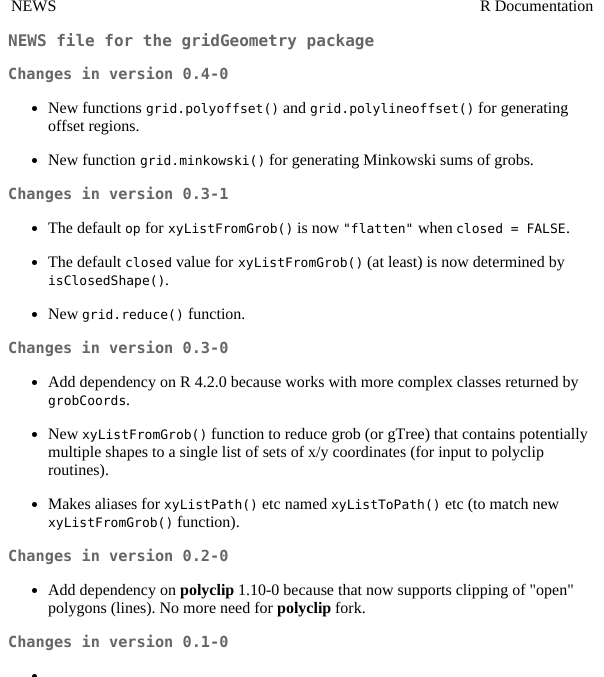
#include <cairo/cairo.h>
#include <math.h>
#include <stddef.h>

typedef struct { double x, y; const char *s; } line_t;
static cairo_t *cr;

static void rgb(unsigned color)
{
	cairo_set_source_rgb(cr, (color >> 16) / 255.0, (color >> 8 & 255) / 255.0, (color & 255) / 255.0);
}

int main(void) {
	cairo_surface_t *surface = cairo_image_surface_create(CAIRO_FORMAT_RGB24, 604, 677);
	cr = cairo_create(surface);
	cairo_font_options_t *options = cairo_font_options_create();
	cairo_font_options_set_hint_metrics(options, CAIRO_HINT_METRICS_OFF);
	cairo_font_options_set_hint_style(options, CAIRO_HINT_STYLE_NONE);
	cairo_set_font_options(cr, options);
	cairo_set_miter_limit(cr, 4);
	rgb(0xffffff);
	cairo_paint(cr);
	rgb(0x000000);
	cairo_arc(cr, 34.5, 108.5, 2.5, 0, 2 * M_PI);
	cairo_fill(cr);
	cairo_arc(cr, 34.5, 160.5, 2.5, 0, 2 * M_PI);
	cairo_fill(cr);
	cairo_arc(cr, 34.5, 228.5, 2.5, 0, 2 * M_PI);
	cairo_fill(cr);
	cairo_arc(cr, 34.5, 262.5, 2.5, 0, 2 * M_PI);
	cairo_fill(cr);
	cairo_arc(cr, 34.5, 314.5, 2.5, 0, 2 * M_PI);
	cairo_fill(cr);
	cairo_arc(cr, 34.5, 382.5, 2.5, 0, 2 * M_PI);
	cairo_fill(cr);
	cairo_arc(cr, 34.5, 434.5, 2.5, 0, 2 * M_PI);
	cairo_fill(cr);
	cairo_arc(cr, 34.5, 504.5, 2.5, 0, 2 * M_PI);
	cairo_fill(cr);
	cairo_arc(cr, 34.5, 590.5, 2.5, 0, 2 * M_PI);
	cairo_fill(cr);
	cairo_arc(cr, 34.5, 676.5, 2.5, 0, 2 * M_PI);
	cairo_fill(cr);
	cairo_select_font_face(cr, "Liberation Serif", CAIRO_FONT_SLANT_NORMAL, CAIRO_FONT_WEIGHT_NORMAL);
	cairo_set_font_size(cr, 16);
	cairo_move_to(cr, 11, 11);
	cairo_show_text(cr, "NEWS");
	cairo_move_to(cr, 480, 11);
	cairo_show_text(cr, "R Documentation");
	cairo_select_font_face(cr, "DejaVu Sans Mono", CAIRO_FONT_SLANT_NORMAL, CAIRO_FONT_WEIGHT_BOLD);
	rgb(0x666666);
	cairo_move_to(cr, 8, 46);
	cairo_show_text(cr, "NEWS file for the gridGeometry package");
	cairo_set_font_size(cr, 15.25);
	cairo_move_to(cr, 8, 79);
	cairo_show_text(cr, "Changes in version 0.4-0");
	cairo_select_font_face(cr, "Liberation Serif", CAIRO_FONT_SLANT_NORMAL, CAIRO_FONT_WEIGHT_NORMAL);
	cairo_set_font_size(cr, 16);
	rgb(0x000000);
	cairo_move_to(cr, 48, 113);
	cairo_show_text(cr, "New functions");
	cairo_select_font_face(cr, "DejaVu Sans Mono", CAIRO_FONT_SLANT_NORMAL, CAIRO_FONT_WEIGHT_NORMAL);
	cairo_set_font_size(cr, 13);
	cairo_move_to(cr, 146, 113);
	cairo_show_text(cr, "grid.polyoffset()");
	cairo_select_font_face(cr, "Liberation Serif", CAIRO_FONT_SLANT_NORMAL, CAIRO_FONT_WEIGHT_NORMAL);
	cairo_set_font_size(cr, 16);
	cairo_move_to(cr, 283, 113);
	cairo_show_text(cr, "and");
	cairo_select_font_face(cr, "DejaVu Sans Mono", CAIRO_FONT_SLANT_NORMAL, CAIRO_FONT_WEIGHT_NORMAL);
	cairo_set_font_size(cr, 13);
	cairo_move_to(cr, 310, 113);
	cairo_show_text(cr, "grid.polylineoffset()");
	cairo_select_font_face(cr, "Liberation Serif", CAIRO_FONT_SLANT_NORMAL, CAIRO_FONT_WEIGHT_NORMAL);
	cairo_set_font_size(cr, 16);
	{
		static const line_t items[] = {
			{478, 113, "for generating"},
			{48, 131, "offset regions."},
			{48, 165, "New function"},
		};
		for (size_t i = 0; i < sizeof items / sizeof *items; i++) {
			cairo_move_to(cr, items[i].x, items[i].y);
			cairo_show_text(cr, items[i].s);
		}
	}
	cairo_select_font_face(cr, "DejaVu Sans Mono", CAIRO_FONT_SLANT_NORMAL, CAIRO_FONT_WEIGHT_NORMAL);
	cairo_set_font_size(cr, 13);
	cairo_move_to(cr, 140, 165);
	cairo_show_text(cr, "grid.minkowski()");
	cairo_select_font_face(cr, "Liberation Serif", CAIRO_FONT_SLANT_NORMAL, CAIRO_FONT_WEIGHT_NORMAL);
	cairo_set_font_size(cr, 16);
	cairo_move_to(cr, 269, 165);
	cairo_show_text(cr, "for generating Minkowski sums of grobs.");
	cairo_select_font_face(cr, "DejaVu Sans Mono", CAIRO_FONT_SLANT_NORMAL, CAIRO_FONT_WEIGHT_BOLD);
	cairo_set_font_size(cr, 15.25);
	rgb(0x666666);
	cairo_move_to(cr, 8, 199);
	cairo_show_text(cr, "Changes in version 0.3-1");
	cairo_select_font_face(cr, "Liberation Serif", CAIRO_FONT_SLANT_NORMAL, CAIRO_FONT_WEIGHT_NORMAL);
	cairo_set_font_size(cr, 16);
	rgb(0x000000);
	cairo_move_to(cr, 48, 233);
	cairo_show_text(cr, "The default");
	cairo_select_font_face(cr, "DejaVu Sans Mono", CAIRO_FONT_SLANT_NORMAL, CAIRO_FONT_WEIGHT_NORMAL);
	cairo_set_font_size(cr, 13);
	cairo_move_to(cr, 125, 233);
	cairo_show_text(cr, "op");
	cairo_select_font_face(cr, "Liberation Serif", CAIRO_FONT_SLANT_NORMAL, CAIRO_FONT_WEIGHT_NORMAL);
	cairo_set_font_size(cr, 16);
	cairo_move_to(cr, 145, 233);
	cairo_show_text(cr, "for");
	cairo_select_font_face(cr, "DejaVu Sans Mono", CAIRO_FONT_SLANT_NORMAL, CAIRO_FONT_WEIGHT_NORMAL);
	cairo_set_font_size(cr, 13);
	cairo_move_to(cr, 168, 233);
	cairo_show_text(cr, "xyListFromGrob()");
	cairo_select_font_face(cr, "Liberation Serif", CAIRO_FONT_SLANT_NORMAL, CAIRO_FONT_WEIGHT_NORMAL);
	cairo_set_font_size(cr, 16);
	cairo_move_to(cr, 297, 233);
	cairo_show_text(cr, "is now");
	cairo_select_font_face(cr, "DejaVu Sans Mono", CAIRO_FONT_SLANT_NORMAL, CAIRO_FONT_WEIGHT_NORMAL);
	cairo_set_font_size(cr, 13);
	cairo_move_to(cr, 343, 233);
	cairo_show_text(cr, "\"flatten\"");
	cairo_select_font_face(cr, "Liberation Serif", CAIRO_FONT_SLANT_NORMAL, CAIRO_FONT_WEIGHT_NORMAL);
	cairo_set_font_size(cr, 16);
	cairo_move_to(cr, 418, 233);
	cairo_show_text(cr, "when");
	cairo_select_font_face(cr, "DejaVu Sans Mono", CAIRO_FONT_SLANT_NORMAL, CAIRO_FONT_WEIGHT_NORMAL);
	cairo_set_font_size(cr, 13);
	cairo_move_to(cr, 456, 233);
	cairo_show_text(cr, "closed = FALSE");
	cairo_select_font_face(cr, "Liberation Serif", CAIRO_FONT_SLANT_NORMAL, CAIRO_FONT_WEIGHT_NORMAL);
	cairo_set_font_size(cr, 16);
	cairo_move_to(cr, 566, 233);
	cairo_show_text(cr, ".");
	cairo_move_to(cr, 48, 267);
	cairo_show_text(cr, "The default");
	cairo_select_font_face(cr, "DejaVu Sans Mono", CAIRO_FONT_SLANT_NORMAL, CAIRO_FONT_WEIGHT_NORMAL);
	cairo_set_font_size(cr, 13);
	cairo_move_to(cr, 125, 267);
	cairo_show_text(cr, "closed");
	cairo_select_font_face(cr, "Liberation Serif", CAIRO_FONT_SLANT_NORMAL, CAIRO_FONT_WEIGHT_NORMAL);
	cairo_set_font_size(cr, 16);
	cairo_move_to(cr, 176, 267);
	cairo_show_text(cr, "value for");
	cairo_select_font_face(cr, "DejaVu Sans Mono", CAIRO_FONT_SLANT_NORMAL, CAIRO_FONT_WEIGHT_NORMAL);
	cairo_set_font_size(cr, 13);
	cairo_move_to(cr, 238, 267);
	cairo_show_text(cr, "xyListFromGrob()");
	cairo_select_font_face(cr, "Liberation Serif", CAIRO_FONT_SLANT_NORMAL, CAIRO_FONT_WEIGHT_NORMAL);
	cairo_set_font_size(cr, 16);
	cairo_move_to(cr, 367, 267);
	cairo_show_text(cr, "(at least) is now determined by");
	cairo_select_font_face(cr, "DejaVu Sans Mono", CAIRO_FONT_SLANT_NORMAL, CAIRO_FONT_WEIGHT_NORMAL);
	cairo_set_font_size(cr, 13);
	cairo_move_to(cr, 48, 285);
	cairo_show_text(cr, "isClosedShape()");
	cairo_select_font_face(cr, "Liberation Serif", CAIRO_FONT_SLANT_NORMAL, CAIRO_FONT_WEIGHT_NORMAL);
	cairo_set_font_size(cr, 16);
	cairo_move_to(cr, 165, 285);
	cairo_show_text(cr, ".");
	cairo_move_to(cr, 48, 319);
	cairo_show_text(cr, "New");
	cairo_select_font_face(cr, "DejaVu Sans Mono", CAIRO_FONT_SLANT_NORMAL, CAIRO_FONT_WEIGHT_NORMAL);
	cairo_set_font_size(cr, 13);
	cairo_move_to(cr, 82, 319);
	cairo_show_text(cr, "grid.reduce()");
	cairo_select_font_face(cr, "Liberation Serif", CAIRO_FONT_SLANT_NORMAL, CAIRO_FONT_WEIGHT_NORMAL);
	cairo_set_font_size(cr, 16);
	cairo_move_to(cr, 188, 319);
	cairo_show_text(cr, "function.");
	cairo_select_font_face(cr, "DejaVu Sans Mono", CAIRO_FONT_SLANT_NORMAL, CAIRO_FONT_WEIGHT_BOLD);
	cairo_set_font_size(cr, 15.25);
	rgb(0x666666);
	cairo_move_to(cr, 8, 353);
	cairo_show_text(cr, "Changes in version 0.3-0");
	cairo_select_font_face(cr, "Liberation Serif", CAIRO_FONT_SLANT_NORMAL, CAIRO_FONT_WEIGHT_NORMAL);
	cairo_set_font_size(cr, 16);
	rgb(0x000000);
	cairo_move_to(cr, 48, 387);
	cairo_show_text(cr, "Add dependency on R 4.2.0 because works with more complex classes returned by");
	cairo_select_font_face(cr, "DejaVu Sans Mono", CAIRO_FONT_SLANT_NORMAL, CAIRO_FONT_WEIGHT_NORMAL);
	cairo_set_font_size(cr, 13);
	cairo_move_to(cr, 48, 405);
	cairo_show_text(cr, "grobCoords");
	cairo_select_font_face(cr, "Liberation Serif", CAIRO_FONT_SLANT_NORMAL, CAIRO_FONT_WEIGHT_NORMAL);
	cairo_set_font_size(cr, 16);
	cairo_move_to(cr, 126, 405);
	cairo_show_text(cr, ".");
	cairo_move_to(cr, 48, 439);
	cairo_show_text(cr, "New");
	cairo_select_font_face(cr, "DejaVu Sans Mono", CAIRO_FONT_SLANT_NORMAL, CAIRO_FONT_WEIGHT_NORMAL);
	cairo_set_font_size(cr, 13);
	cairo_move_to(cr, 82, 439);
	cairo_show_text(cr, "xyListFromGrob()");
	cairo_select_font_face(cr, "Liberation Serif", CAIRO_FONT_SLANT_NORMAL, CAIRO_FONT_WEIGHT_NORMAL);
	cairo_set_font_size(cr, 16);
	{
		static const line_t items[] = {
			{211, 439, "function to reduce grob (or gTree) that contains potentially"},
			{48, 457, "multiple shapes to a single list of sets of x/y coordinates (for input to polyclip"},
			{48, 475, "routines)."},
			{48, 509, "Makes aliases for"},
		};
		for (size_t i = 0; i < sizeof items / sizeof *items; i++) {
			cairo_move_to(cr, items[i].x, items[i].y);
			cairo_show_text(cr, items[i].s);
		}
	}
	cairo_select_font_face(cr, "DejaVu Sans Mono", CAIRO_FONT_SLANT_NORMAL, CAIRO_FONT_WEIGHT_NORMAL);
	cairo_set_font_size(cr, 13);
	cairo_move_to(cr, 164, 509);
	cairo_show_text(cr, "xyListPath()");
	cairo_select_font_face(cr, "Liberation Serif", CAIRO_FONT_SLANT_NORMAL, CAIRO_FONT_WEIGHT_NORMAL);
	cairo_set_font_size(cr, 16);
	cairo_move_to(cr, 262, 509);
	cairo_show_text(cr, "etc named");
	cairo_select_font_face(cr, "DejaVu Sans Mono", CAIRO_FONT_SLANT_NORMAL, CAIRO_FONT_WEIGHT_NORMAL);
	cairo_set_font_size(cr, 13);
	cairo_move_to(cr, 331, 509);
	cairo_show_text(cr, "xyListToPath()");
	cairo_select_font_face(cr, "Liberation Serif", CAIRO_FONT_SLANT_NORMAL, CAIRO_FONT_WEIGHT_NORMAL);
	cairo_set_font_size(cr, 16);
	cairo_move_to(cr, 445, 509);
	cairo_show_text(cr, "etc (to match new");
	cairo_select_font_face(cr, "DejaVu Sans Mono", CAIRO_FONT_SLANT_NORMAL, CAIRO_FONT_WEIGHT_NORMAL);
	cairo_set_font_size(cr, 13);
	cairo_move_to(cr, 48, 527);
	cairo_show_text(cr, "xyListFromGrob()");
	cairo_select_font_face(cr, "Liberation Serif", CAIRO_FONT_SLANT_NORMAL, CAIRO_FONT_WEIGHT_NORMAL);
	cairo_set_font_size(cr, 16);
	cairo_move_to(cr, 177, 527);
	cairo_show_text(cr, "function).");
	cairo_select_font_face(cr, "DejaVu Sans Mono", CAIRO_FONT_SLANT_NORMAL, CAIRO_FONT_WEIGHT_BOLD);
	cairo_set_font_size(cr, 15.25);
	rgb(0x666666);
	cairo_move_to(cr, 8, 561);
	cairo_show_text(cr, "Changes in version 0.2-0");
	cairo_select_font_face(cr, "Liberation Serif", CAIRO_FONT_SLANT_NORMAL, CAIRO_FONT_WEIGHT_NORMAL);
	cairo_set_font_size(cr, 16);
	rgb(0x000000);
	cairo_move_to(cr, 48, 595);
	cairo_show_text(cr, "Add dependency on");
	cairo_select_font_face(cr, "Liberation Serif", CAIRO_FONT_SLANT_NORMAL, CAIRO_FONT_WEIGHT_BOLD);
	cairo_move_to(cr, 180, 595);
	cairo_show_text(cr, "polyclip");
	cairo_select_font_face(cr, "Liberation Serif", CAIRO_FONT_SLANT_NORMAL, CAIRO_FONT_WEIGHT_NORMAL);
	cairo_move_to(cr, 238, 595);
	cairo_show_text(cr, "1.10-0 because that now supports clipping of \"open\"");
	cairo_move_to(cr, 48, 613);
	cairo_show_text(cr, "polygons (lines). No more need for");
	cairo_select_font_face(cr, "Liberation Serif", CAIRO_FONT_SLANT_NORMAL, CAIRO_FONT_WEIGHT_BOLD);
	cairo_move_to(cr, 277, 613);
	cairo_show_text(cr, "polyclip");
	cairo_select_font_face(cr, "Liberation Serif", CAIRO_FONT_SLANT_NORMAL, CAIRO_FONT_WEIGHT_NORMAL);
	cairo_move_to(cr, 335, 613);
	cairo_show_text(cr, "fork.");
	cairo_select_font_face(cr, "DejaVu Sans Mono", CAIRO_FONT_SLANT_NORMAL, CAIRO_FONT_WEIGHT_BOLD);
	cairo_set_font_size(cr, 15.25);
	rgb(0x666666);
	cairo_move_to(cr, 8, 647);
	cairo_show_text(cr, "Changes in version 0.1-0");
	cairo_surface_write_to_png(surface, "page.png");
	cairo_font_options_destroy(options);
	cairo_destroy(cr);
	cairo_surface_destroy(surface);
	return 0;
}
